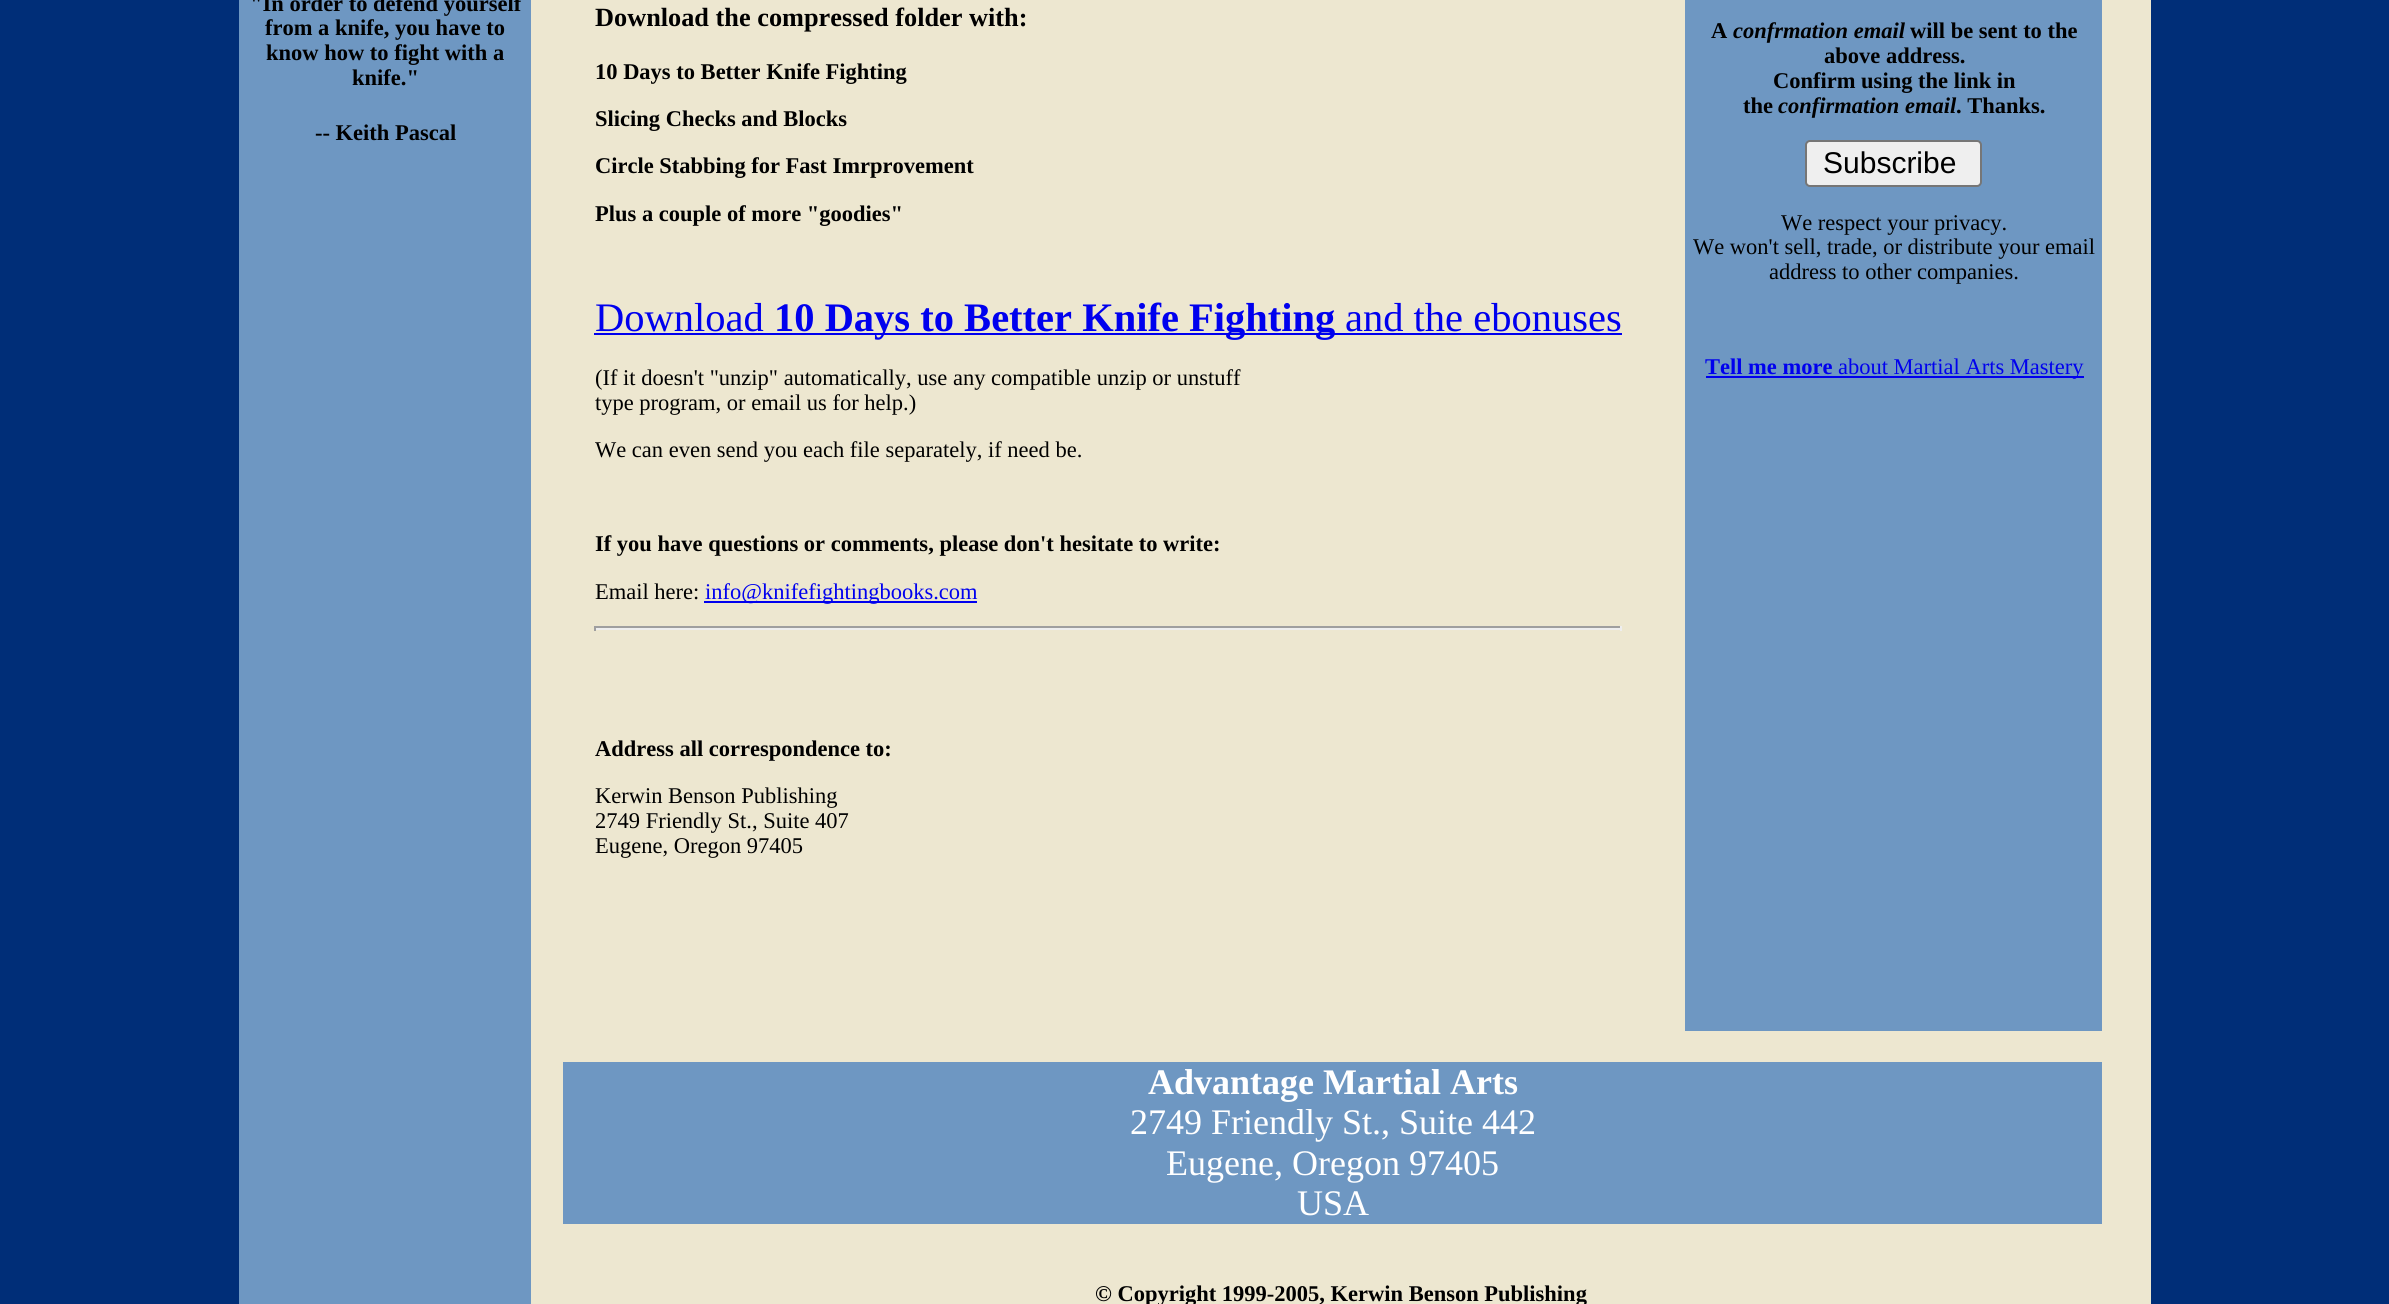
#include <cairo/cairo.h>
#include <math.h>
#include <stddef.h>

typedef struct { double x, y; const char *s; } line_t;
typedef struct { double x, y, w, h; unsigned color; } box_t;
static cairo_t *cr;

static void rgb(unsigned color)
{
	cairo_set_source_rgb(cr, (color >> 16) / 255.0, (color >> 8 & 255) / 255.0, (color & 255) / 255.0);
}

static void rrect(double x, double y, double w, double h, double r)
{
	cairo_new_sub_path(cr);
	cairo_arc(cr, x + w - r, y + h - r, r, 0, M_PI / 2);
	cairo_arc(cr, x + r, y + h - r, r, M_PI / 2, M_PI);
	cairo_arc(cr, x + r, y + r, r, M_PI, 1.5 * M_PI);
	cairo_arc(cr, x + w - r, y + r, r, 1.5 * M_PI, 2 * M_PI);
	cairo_close_path(cr);
}

int main(void) {
	cairo_surface_t *surface = cairo_image_surface_create(CAIRO_FORMAT_RGB24, 2389, 1304);
	cr = cairo_create(surface);
	cairo_font_options_t *options = cairo_font_options_create();
	cairo_font_options_set_hint_metrics(options, CAIRO_HINT_METRICS_OFF);
	cairo_font_options_set_hint_style(options, CAIRO_HINT_STYLE_NONE);
	cairo_set_font_options(cr, options);
	cairo_set_miter_limit(cr, 4);
	rgb(0x002e78);
	cairo_paint(cr);
	{
		static const box_t items[] = {
			{239, 0, 292, 1304, 0x6e97c2},
			{531, 0, 1620, 1304, 0xede7d0},
			{594, 333, 740, 2, 0x0000ee},
			{1334, 333, 288, 2, 0x0000ee},
			{704, 601, 273, 2, 0x0000ee},
			{594, 626, 1028, 2, 0x9f9f9f},
			{1620, 626, 2, 5, 0xeeeeee},
			{594, 628, 1028, 2, 0xeeeeee},
			{594, 626, 2, 5, 0x9f9f9f},
			{1685, 0, 417, 1031, 0x6e97c2},
		};
		for (size_t i = 0; i < sizeof items / sizeof *items; i++) {
			rgb(items[i].color);
			cairo_rectangle(cr, items[i].x, items[i].y, items[i].w, items[i].h);
			cairo_fill(cr);
		}
	}
	rgb(0xefefef);
	rrect(1806, 141, 175, 45, 4);
	cairo_fill_preserve(cr);
	rgb(0x767676);
	cairo_stroke(cr);
	rgb(0x0000ee);
	cairo_rectangle(cr, 1706, 376, 378, 2);
	cairo_fill(cr);
	rgb(0x6e97c2);
	cairo_rectangle(cr, 563, 1062, 1539, 162);
	cairo_fill(cr);
	cairo_select_font_face(cr, "Liberation Serif", CAIRO_FONT_SLANT_NORMAL, CAIRO_FONT_WEIGHT_BOLD);
	cairo_set_font_size(cr, 22.5);
	rgb(0x000000);
	{
		static const line_t items[] = {
			{250, 11, "\"In order to defend yourself"},
			{265, 35, "from a knife, you have to"},
			{266, 60, "know how to fight with a"},
			{352, 85, "knife.\""},
			{315, 140, "-- Keith Pascal"},
		};
		for (size_t i = 0; i < sizeof items / sizeof *items; i++) {
			cairo_move_to(cr, items[i].x, items[i].y);
			cairo_show_text(cr, items[i].s);
		}
	}
	cairo_set_font_size(cr, 26.3);
	cairo_move_to(cr, 595, 26);
	cairo_show_text(cr, "Download the compressed folder with:");
	cairo_set_font_size(cr, 22.5);
	{
		static const line_t items[] = {
			{595, 79, "10 Days to Better Knife Fighting"},
			{595, 126, "Slicing Checks and Blocks"},
			{595, 173, "Circle Stabbing for Fast Imrprovement"},
			{595, 221, "Plus a couple of more \"goodies\""},
		};
		for (size_t i = 0; i < sizeof items / sizeof *items; i++) {
			cairo_move_to(cr, items[i].x, items[i].y);
			cairo_show_text(cr, items[i].s);
		}
	}
	cairo_select_font_face(cr, "Liberation Serif", CAIRO_FONT_SLANT_NORMAL, CAIRO_FONT_WEIGHT_NORMAL);
	cairo_set_font_size(cr, 40.5);
	rgb(0x0000ee);
	cairo_move_to(cr, 595, 331);
	cairo_show_text(cr, "Download");
	cairo_select_font_face(cr, "Liberation Serif", CAIRO_FONT_SLANT_NORMAL, CAIRO_FONT_WEIGHT_BOLD);
	cairo_move_to(cr, 774, 331);
	cairo_show_text(cr, "10 Days to Better Knife Fighting");
	cairo_select_font_face(cr, "Liberation Serif", CAIRO_FONT_SLANT_NORMAL, CAIRO_FONT_WEIGHT_NORMAL);
	cairo_move_to(cr, 1345, 331);
	cairo_show_text(cr, "and the ebonuses");
	cairo_set_font_size(cr, 22.5);
	rgb(0x000000);
	{
		static const line_t items[] = {
			{595, 385, "(If it doesn't \"unzip\" automatically, use any compatible unzip or unstuff"},
			{595, 410, "type program, or email us for help.)"},
			{595, 457, "We can even send you each file separately, if need be."},
		};
		for (size_t i = 0; i < sizeof items / sizeof *items; i++) {
			cairo_move_to(cr, items[i].x, items[i].y);
			cairo_show_text(cr, items[i].s);
		}
	}
	cairo_select_font_face(cr, "Liberation Serif", CAIRO_FONT_SLANT_NORMAL, CAIRO_FONT_WEIGHT_BOLD);
	cairo_move_to(cr, 595, 551);
	cairo_show_text(cr, "If you have questions or comments, please don't hesitate to write:");
	cairo_select_font_face(cr, "Liberation Serif", CAIRO_FONT_SLANT_NORMAL, CAIRO_FONT_WEIGHT_NORMAL);
	cairo_move_to(cr, 595, 599);
	cairo_show_text(cr, "Email here:");
	rgb(0x0000ee);
	cairo_move_to(cr, 705, 599);
	cairo_show_text(cr, "info@knifefightingbooks.com");
	cairo_select_font_face(cr, "Liberation Serif", CAIRO_FONT_SLANT_NORMAL, CAIRO_FONT_WEIGHT_BOLD);
	rgb(0x000000);
	cairo_move_to(cr, 595, 756);
	cairo_show_text(cr, "Address all correspondence to:");
	cairo_select_font_face(cr, "Liberation Serif", CAIRO_FONT_SLANT_NORMAL, CAIRO_FONT_WEIGHT_NORMAL);
	{
		static const line_t items[] = {
			{595, 803, "Kerwin Benson Publishing"},
			{595, 828, "2749 Friendly St., Suite 407"},
			{595, 853, "Eugene, Oregon 97405"},
		};
		for (size_t i = 0; i < sizeof items / sizeof *items; i++) {
			cairo_move_to(cr, items[i].x, items[i].y);
			cairo_show_text(cr, items[i].s);
		}
	}
	cairo_select_font_face(cr, "Liberation Serif", CAIRO_FONT_SLANT_NORMAL, CAIRO_FONT_WEIGHT_BOLD);
	cairo_move_to(cr, 1711, 38);
	cairo_show_text(cr, "A");
	cairo_select_font_face(cr, "Liberation Serif", CAIRO_FONT_SLANT_ITALIC, CAIRO_FONT_WEIGHT_BOLD);
	cairo_move_to(cr, 1733, 38);
	cairo_show_text(cr, "confrmation email");
	cairo_select_font_face(cr, "Liberation Serif", CAIRO_FONT_SLANT_NORMAL, CAIRO_FONT_WEIGHT_BOLD);
	{
		static const line_t items[] = {
			{1910, 38, "will be sent to the"},
			{1824, 63, "above address."},
			{1773, 88, "Confirm using the link in"},
			{1743, 113, "the"},
		};
		for (size_t i = 0; i < sizeof items / sizeof *items; i++) {
			cairo_move_to(cr, items[i].x, items[i].y);
			cairo_show_text(cr, items[i].s);
		}
	}
	cairo_select_font_face(cr, "Liberation Serif", CAIRO_FONT_SLANT_ITALIC, CAIRO_FONT_WEIGHT_BOLD);
	cairo_move_to(cr, 1778, 113);
	cairo_show_text(cr, "confirmation email");
	cairo_select_font_face(cr, "Liberation Serif", CAIRO_FONT_SLANT_NORMAL, CAIRO_FONT_WEIGHT_BOLD);
	cairo_move_to(cr, 1956, 113);
	cairo_show_text(cr, ". Thanks.");
	cairo_select_font_face(cr, "Liberation Sans", CAIRO_FONT_SLANT_NORMAL, CAIRO_FONT_WEIGHT_NORMAL);
	cairo_set_font_size(cr, 30);
	cairo_move_to(cr, 1823, 173);
	cairo_show_text(cr, "Subscribe");
	cairo_select_font_face(cr, "Liberation Serif", CAIRO_FONT_SLANT_NORMAL, CAIRO_FONT_WEIGHT_NORMAL);
	cairo_set_font_size(cr, 22.5);
	{
		static const line_t items[] = {
			{1781, 230, "We respect your privacy."},
			{1693, 254, "We won't sell, trade, or distribute your email"},
			{1769, 279, "address to other companies."},
		};
		for (size_t i = 0; i < sizeof items / sizeof *items; i++) {
			cairo_move_to(cr, items[i].x, items[i].y);
			cairo_show_text(cr, items[i].s);
		}
	}
	cairo_select_font_face(cr, "Liberation Serif", CAIRO_FONT_SLANT_NORMAL, CAIRO_FONT_WEIGHT_BOLD);
	rgb(0x0000ee);
	cairo_move_to(cr, 1705, 374);
	cairo_show_text(cr, "Tell me more");
	cairo_select_font_face(cr, "Liberation Serif", CAIRO_FONT_SLANT_NORMAL, CAIRO_FONT_WEIGHT_NORMAL);
	cairo_move_to(cr, 1838, 374);
	cairo_show_text(cr, "about Martial Arts Mastery");
	cairo_select_font_face(cr, "Liberation Serif", CAIRO_FONT_SLANT_NORMAL, CAIRO_FONT_WEIGHT_BOLD);
	cairo_set_font_size(cr, 36);
	rgb(0xffffff);
	cairo_move_to(cr, 1148, 1094);
	cairo_show_text(cr, "Advantage Martial Arts");
	cairo_select_font_face(cr, "Liberation Serif", CAIRO_FONT_SLANT_NORMAL, CAIRO_FONT_WEIGHT_NORMAL);
	{
		static const line_t items[] = {
			{1130, 1134, "2749 Friendly St., Suite 442"},
			{1166, 1175, "Eugene, Oregon 97405"},
			{1297, 1215, "USA"},
		};
		for (size_t i = 0; i < sizeof items / sizeof *items; i++) {
			cairo_move_to(cr, items[i].x, items[i].y);
			cairo_show_text(cr, items[i].s);
		}
	}
	cairo_select_font_face(cr, "Liberation Serif", CAIRO_FONT_SLANT_NORMAL, CAIRO_FONT_WEIGHT_BOLD);
	cairo_set_font_size(cr, 22.5);
	rgb(0x000000);
	cairo_move_to(cr, 1095, 1301);
	cairo_show_text(cr, "© Copyright 1999-2005, Kerwin Benson Publishing");
	cairo_surface_write_to_png(surface, "page.png");
	cairo_font_options_destroy(options);
	cairo_destroy(cr);
	cairo_surface_destroy(surface);
	return 0;
}
